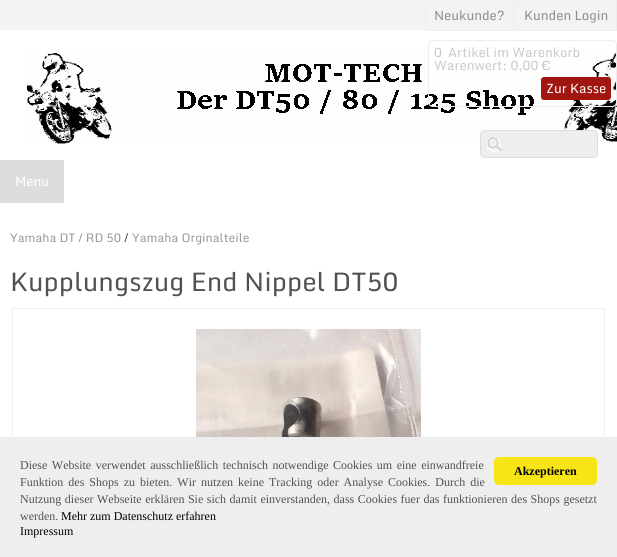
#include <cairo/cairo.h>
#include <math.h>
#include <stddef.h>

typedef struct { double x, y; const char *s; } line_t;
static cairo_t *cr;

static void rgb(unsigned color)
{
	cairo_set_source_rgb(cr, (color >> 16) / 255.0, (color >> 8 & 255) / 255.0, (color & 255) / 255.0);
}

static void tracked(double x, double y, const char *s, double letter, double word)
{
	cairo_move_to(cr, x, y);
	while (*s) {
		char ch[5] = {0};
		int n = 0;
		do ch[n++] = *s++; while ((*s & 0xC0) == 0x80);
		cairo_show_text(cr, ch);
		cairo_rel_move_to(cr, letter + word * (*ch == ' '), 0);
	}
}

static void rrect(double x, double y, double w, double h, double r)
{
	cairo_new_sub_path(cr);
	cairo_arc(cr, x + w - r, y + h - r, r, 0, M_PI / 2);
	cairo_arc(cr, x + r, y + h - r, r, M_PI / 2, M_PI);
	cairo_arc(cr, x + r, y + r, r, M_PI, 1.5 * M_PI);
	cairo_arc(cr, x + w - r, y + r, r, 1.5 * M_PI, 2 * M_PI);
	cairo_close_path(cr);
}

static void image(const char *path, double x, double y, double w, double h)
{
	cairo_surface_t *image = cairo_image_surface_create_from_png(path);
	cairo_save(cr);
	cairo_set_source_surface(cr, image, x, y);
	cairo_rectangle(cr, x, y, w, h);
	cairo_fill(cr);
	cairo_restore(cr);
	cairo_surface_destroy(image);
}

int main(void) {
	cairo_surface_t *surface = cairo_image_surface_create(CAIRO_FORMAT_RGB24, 617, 557);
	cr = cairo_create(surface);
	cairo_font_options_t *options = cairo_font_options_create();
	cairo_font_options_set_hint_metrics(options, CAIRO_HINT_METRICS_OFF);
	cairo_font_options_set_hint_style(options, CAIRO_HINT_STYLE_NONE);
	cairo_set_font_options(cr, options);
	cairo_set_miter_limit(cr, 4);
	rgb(0xffffff);
	cairo_paint(cr);
	rgb(0xf3f3f3);
	cairo_rectangle(cr, 0, 0, 616, 30);
	cairo_fill(cr);
	cairo_rectangle(cr, 425.5, 0.5, 88, 30);
	rgb(0xeeeeee);
	cairo_set_line_width(cr, 1);
	cairo_stroke(cr);
	cairo_rectangle(cr, 515.5, 0.5, 101, 30);
	cairo_stroke(cr);
	image("img/1.png", 26, 51, 591, 93);
	rrect(428.5, 40.5, 188, 66, 4.5);
	cairo_stroke(cr);
	rgb(0xa21612);
	rrect(541, 77, 70, 23, 3);
	cairo_fill(cr);
	rgb(0xeeeeee);
	rrect(480, 130, 118, 28, 5);
	cairo_fill(cr);
	image("img/2.png", 487, 137, 15, 15);
	rrect(480.5, 130.5, 117, 27, 4.5);
	rgb(0xdddddd);
	cairo_stroke(cr);
	cairo_rectangle(cr, 0, 160, 64, 43);
	cairo_fill(cr);
	cairo_rectangle(cr, 12.5, 308.5, 592, 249);
	rgb(0xeeeeee);
	cairo_stroke(cr);
	image("img/3.png", 196, 329, 225, 108);
	cairo_rectangle(cr, 0, 437, 617, 120);
	cairo_fill(cr);
	rgb(0xf8e516);
	rrect(494, 457, 103, 28, 5);
	cairo_fill(cr);
	cairo_select_font_face(cr, "Monda", CAIRO_FONT_SLANT_NORMAL, CAIRO_FONT_WEIGHT_NORMAL);
	cairo_set_font_size(cr, 13);
	rgb(0x8d8d8d);
	cairo_move_to(cr, 434, 20);
	cairo_show_text(cr, "Neukunde?");
	cairo_move_to(cr, 524, 20);
	cairo_show_text(cr, "Kunden Login");
	rgb(0xcacaca);
	{
		static const line_t items[] = {
			{434, 57, "0"},
			{448, 57, "Artikel im Warenkorb"},
			{434, 70, "Warenwert: 0,00 €"},
		};
		for (size_t i = 0; i < sizeof items / sizeof *items; i++) {
			cairo_move_to(cr, items[i].x, items[i].y);
			cairo_show_text(cr, items[i].s);
		}
	}
	rgb(0xffffff);
	cairo_move_to(cr, 546, 93);
	cairo_show_text(cr, "Zur Kasse");
	cairo_move_to(cr, 15, 186);
	cairo_show_text(cr, "Menu");
	cairo_set_font_size(cr, 12);
	rgb(0x999999);
	cairo_move_to(cr, 10, 242);
	cairo_show_text(cr, "Yamaha DT / RD 50");
	rgb(0x525252);
	cairo_move_to(cr, 124, 242);
	cairo_show_text(cr, "/");
	rgb(0x999999);
	cairo_move_to(cr, 132, 242);
	cairo_show_text(cr, "Yamaha Orginalteile");
	cairo_set_font_size(cr, 26);
	rgb(0x525252);
	cairo_move_to(cr, 10, 291);
	cairo_show_text(cr, "Kupplungszug End Nippel DT50");
	cairo_select_font_face(cr, "Liberation Serif", CAIRO_FONT_SLANT_NORMAL, CAIRO_FONT_WEIGHT_NORMAL);
	cairo_set_font_size(cr, 12);
	tracked(20, 469, "Diese Website verwendet ausschließlich technisch notwendige Cookies um eine einwandfreie", 0, 1.5);
	tracked(20, 486, "Funktion des Shops zu bieten. Wir nutzen keine Tracking oder Analyse Cookies. Durch die", 0, 2);
	tracked(20, 503, "Nutzung dieser Webseite erklären Sie sich damit einverstanden, dass Cookies fuer das funktionieren des Shops gesetzt", 0, 0.5);
	cairo_move_to(cr, 20, 520);
	cairo_show_text(cr, "werden.");
	rgb(0x000000);
	cairo_move_to(cr, 61, 520);
	cairo_show_text(cr, "Mehr zum Datenschutz erfahren");
	cairo_select_font_face(cr, "Liberation Serif", CAIRO_FONT_SLANT_NORMAL, CAIRO_FONT_WEIGHT_BOLD);
	cairo_move_to(cr, 514, 475);
	cairo_show_text(cr, "Akzeptieren");
	cairo_select_font_face(cr, "Liberation Serif", CAIRO_FONT_SLANT_NORMAL, CAIRO_FONT_WEIGHT_NORMAL);
	cairo_move_to(cr, 20, 535);
	cairo_show_text(cr, "Impressum");
	cairo_surface_write_to_png(surface, "page.png");
	cairo_font_options_destroy(options);
	cairo_destroy(cr);
	cairo_surface_destroy(surface);
	return 0;
}
